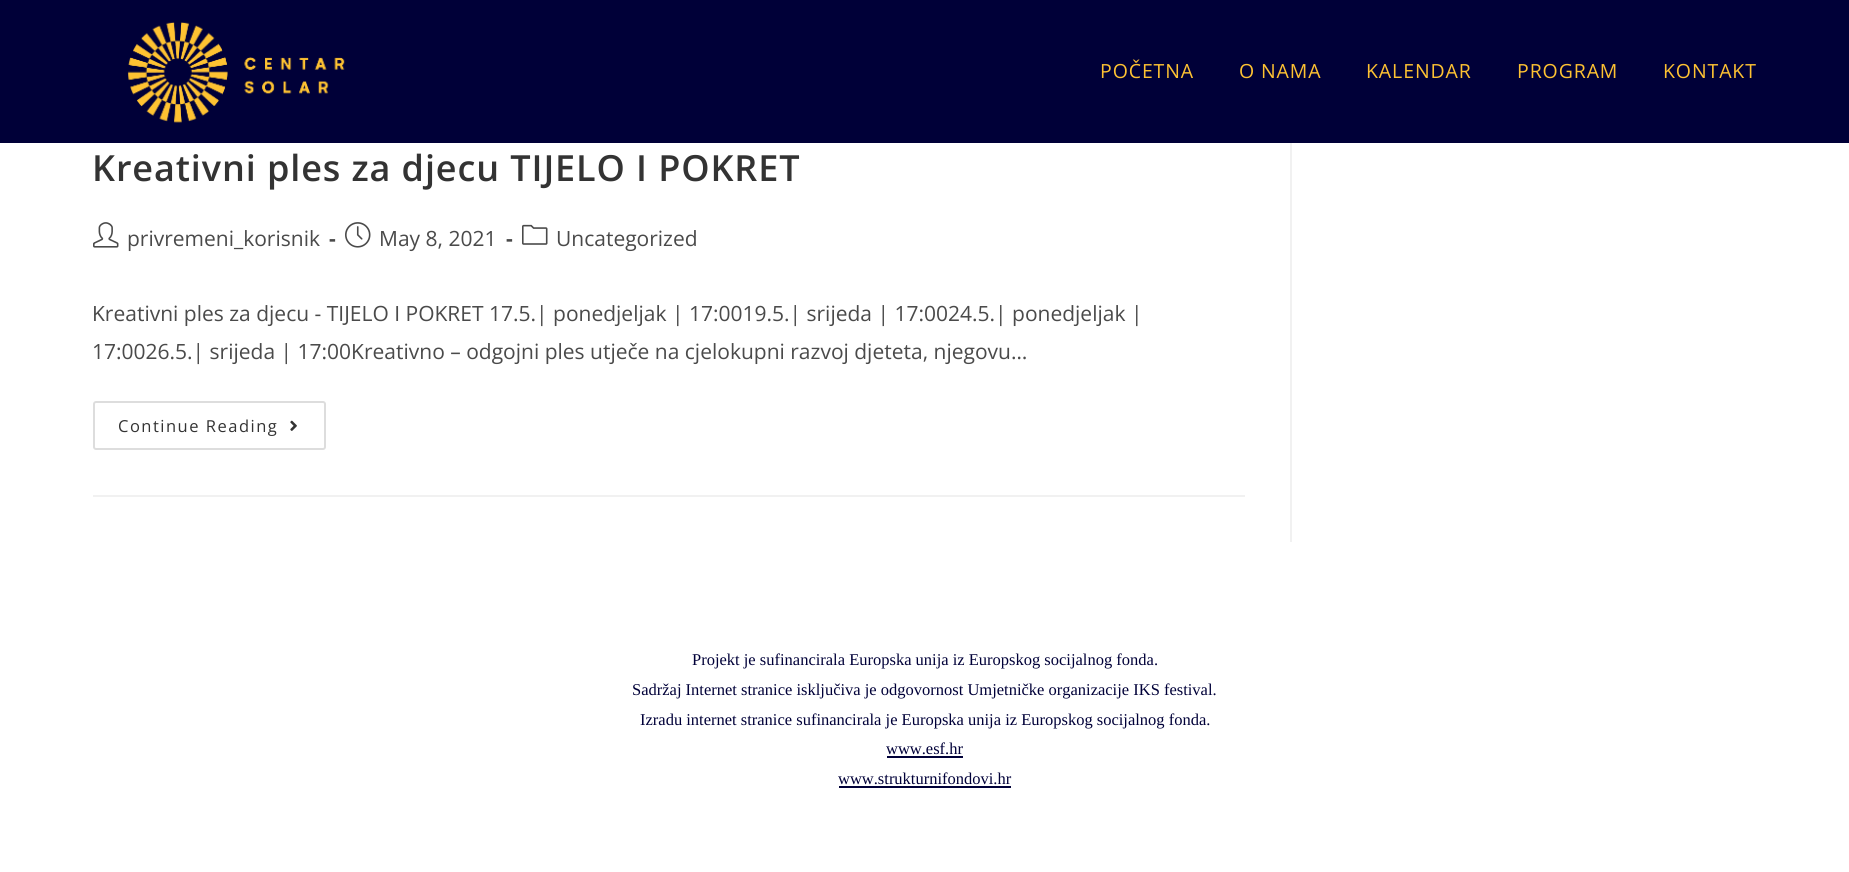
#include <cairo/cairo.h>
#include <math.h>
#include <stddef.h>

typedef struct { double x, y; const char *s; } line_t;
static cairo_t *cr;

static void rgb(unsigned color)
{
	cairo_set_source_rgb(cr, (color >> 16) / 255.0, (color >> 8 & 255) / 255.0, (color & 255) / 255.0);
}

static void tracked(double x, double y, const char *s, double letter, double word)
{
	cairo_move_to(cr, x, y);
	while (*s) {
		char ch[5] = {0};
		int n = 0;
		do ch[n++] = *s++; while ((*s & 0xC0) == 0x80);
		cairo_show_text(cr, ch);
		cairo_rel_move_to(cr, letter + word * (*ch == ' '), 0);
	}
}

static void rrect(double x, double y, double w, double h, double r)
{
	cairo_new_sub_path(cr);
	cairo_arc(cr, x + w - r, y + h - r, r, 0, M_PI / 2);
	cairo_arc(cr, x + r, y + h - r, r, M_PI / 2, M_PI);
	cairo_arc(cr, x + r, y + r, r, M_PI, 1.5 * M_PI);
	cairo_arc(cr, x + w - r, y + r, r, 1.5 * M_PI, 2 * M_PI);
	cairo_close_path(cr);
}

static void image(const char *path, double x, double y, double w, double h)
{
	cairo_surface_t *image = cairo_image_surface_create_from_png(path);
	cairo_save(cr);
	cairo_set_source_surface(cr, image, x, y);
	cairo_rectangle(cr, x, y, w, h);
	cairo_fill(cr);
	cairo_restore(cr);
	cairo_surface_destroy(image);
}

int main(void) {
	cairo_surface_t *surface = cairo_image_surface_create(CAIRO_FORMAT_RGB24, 1849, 872);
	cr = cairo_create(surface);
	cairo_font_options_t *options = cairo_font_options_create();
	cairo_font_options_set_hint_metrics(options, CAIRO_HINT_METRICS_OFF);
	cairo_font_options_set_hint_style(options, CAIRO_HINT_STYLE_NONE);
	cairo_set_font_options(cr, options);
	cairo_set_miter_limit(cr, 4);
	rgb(0xffffff);
	cairo_paint(cr);
	rgb(0x000038);
	cairo_rectangle(cr, 0, 0, 1849, 143);
	cairo_fill(cr);
	image("img/1.png", 127, 22, 218, 101);
	rgb(0xf1f1f1);
	cairo_rectangle(cr, 1290, 143, 2, 399);
	cairo_fill(cr);
	cairo_rectangle(cr, 93, 495, 1152, 2);
	cairo_fill(cr);
	image("img/2.png", 93, 222, 26, 26);
	image("img/3.png", 345, 222, 26, 26);
	image("img/4.png", 522, 224, 26, 21);
	rrect(94, 402, 231, 47, 2);
	rgb(0xdddddd);
	cairo_stroke(cr);
	image("img/5.png", 290, 420, 7, 11);
	rgb(0x000038);
	cairo_rectangle(cr, 887, 756, 76, 2);
	cairo_fill(cr);
	cairo_rectangle(cr, 839, 786, 172, 2);
	cairo_fill(cr);
	cairo_select_font_face(cr, "Open Sans", CAIRO_FONT_SLANT_NORMAL, CAIRO_FONT_WEIGHT_NORMAL);
	cairo_set_font_size(cr, 19.5);
	rgb(0xfec232);
	{
		static const line_t items[] = {
			{1100, 78, "POČETNA"},
			{1239, 78, "O NAMA"},
			{1366, 78, "KALENDAR"},
			{1517, 78, "PROGRAM"},
			{1663, 78, "KONTAKT"},
		};
		for (size_t i = 0; i < sizeof items / sizeof *items; i++) {
			tracked(items[i].x, items[i].y, items[i].s, 0.9, 0);
		}
	}
	cairo_select_font_face(cr, "Open Sans SemiBold", CAIRO_FONT_SLANT_NORMAL, CAIRO_FONT_WEIGHT_NORMAL);
	cairo_set_font_size(cr, 36);
	rgb(0x333333);
	tracked(92, 181, "Kreativni ples za djecu TIJELO I POKRET", 0.9, 0);
	cairo_select_font_face(cr, "Open Sans", CAIRO_FONT_SLANT_NORMAL, CAIRO_FONT_WEIGHT_NORMAL);
	cairo_set_font_size(cr, 21);
	rgb(0x4a4a4a);
	cairo_move_to(cr, 127, 246);
	cairo_show_text(cr, "privremeni_korisnik");
	cairo_select_font_face(cr, "Open Sans", CAIRO_FONT_SLANT_NORMAL, CAIRO_FONT_WEIGHT_BOLD);
	cairo_move_to(cr, 329, 246);
	cairo_show_text(cr, "-");
	cairo_select_font_face(cr, "Open Sans", CAIRO_FONT_SLANT_NORMAL, CAIRO_FONT_WEIGHT_NORMAL);
	cairo_move_to(cr, 379, 246);
	cairo_show_text(cr, "May 8, 2021");
	cairo_select_font_face(cr, "Open Sans", CAIRO_FONT_SLANT_NORMAL, CAIRO_FONT_WEIGHT_BOLD);
	cairo_move_to(cr, 506, 246);
	cairo_show_text(cr, "-");
	cairo_select_font_face(cr, "Open Sans", CAIRO_FONT_SLANT_NORMAL, CAIRO_FONT_WEIGHT_NORMAL);
	{
		static const line_t items[] = {
			{556, 246, "Uncategorized"},
			{92, 321, "Kreativni ples za djecu - TIJELO I POKRET 17.5.| ponedjeljak | 17:0019.5.| srijeda | 17:0024.5.| ponedjeljak |"},
			{92, 359, "17:0026.5.| srijeda | 17:00Kreativno – odgojni ples utječe na cjelokupni razvoj djeteta, njegovu…"},
		};
		for (size_t i = 0; i < sizeof items / sizeof *items; i++) {
			cairo_move_to(cr, items[i].x, items[i].y);
			cairo_show_text(cr, items[i].s);
		}
	}
	cairo_set_font_size(cr, 16.5);
	rgb(0x333333);
	tracked(118, 432, "Continue Reading", 1.5, 0);
	cairo_select_font_face(cr, "Liberation Serif", CAIRO_FONT_SLANT_NORMAL, CAIRO_FONT_WEIGHT_NORMAL);
	rgb(0x000038);
	{
		static const line_t items[] = {
			{692, 665, "Projekt je sufinancirala Europska unija iz Europskog socijalnog fonda."},
			{632, 695, "Sadržaj Internet stranice isključiva je odgovornost Umjetničke organizacije IKS festival."},
			{640, 725, "Izradu internet stranice sufinancirala je Europska unija iz Europskog socijalnog fonda."},
			{886, 754, "www.esf.hr"},
			{838, 784, "www.strukturnifondovi.hr"},
		};
		for (size_t i = 0; i < sizeof items / sizeof *items; i++) {
			cairo_move_to(cr, items[i].x, items[i].y);
			cairo_show_text(cr, items[i].s);
		}
	}
	cairo_surface_write_to_png(surface, "page.png");
	cairo_font_options_destroy(options);
	cairo_destroy(cr);
	cairo_surface_destroy(surface);
	return 0;
}
